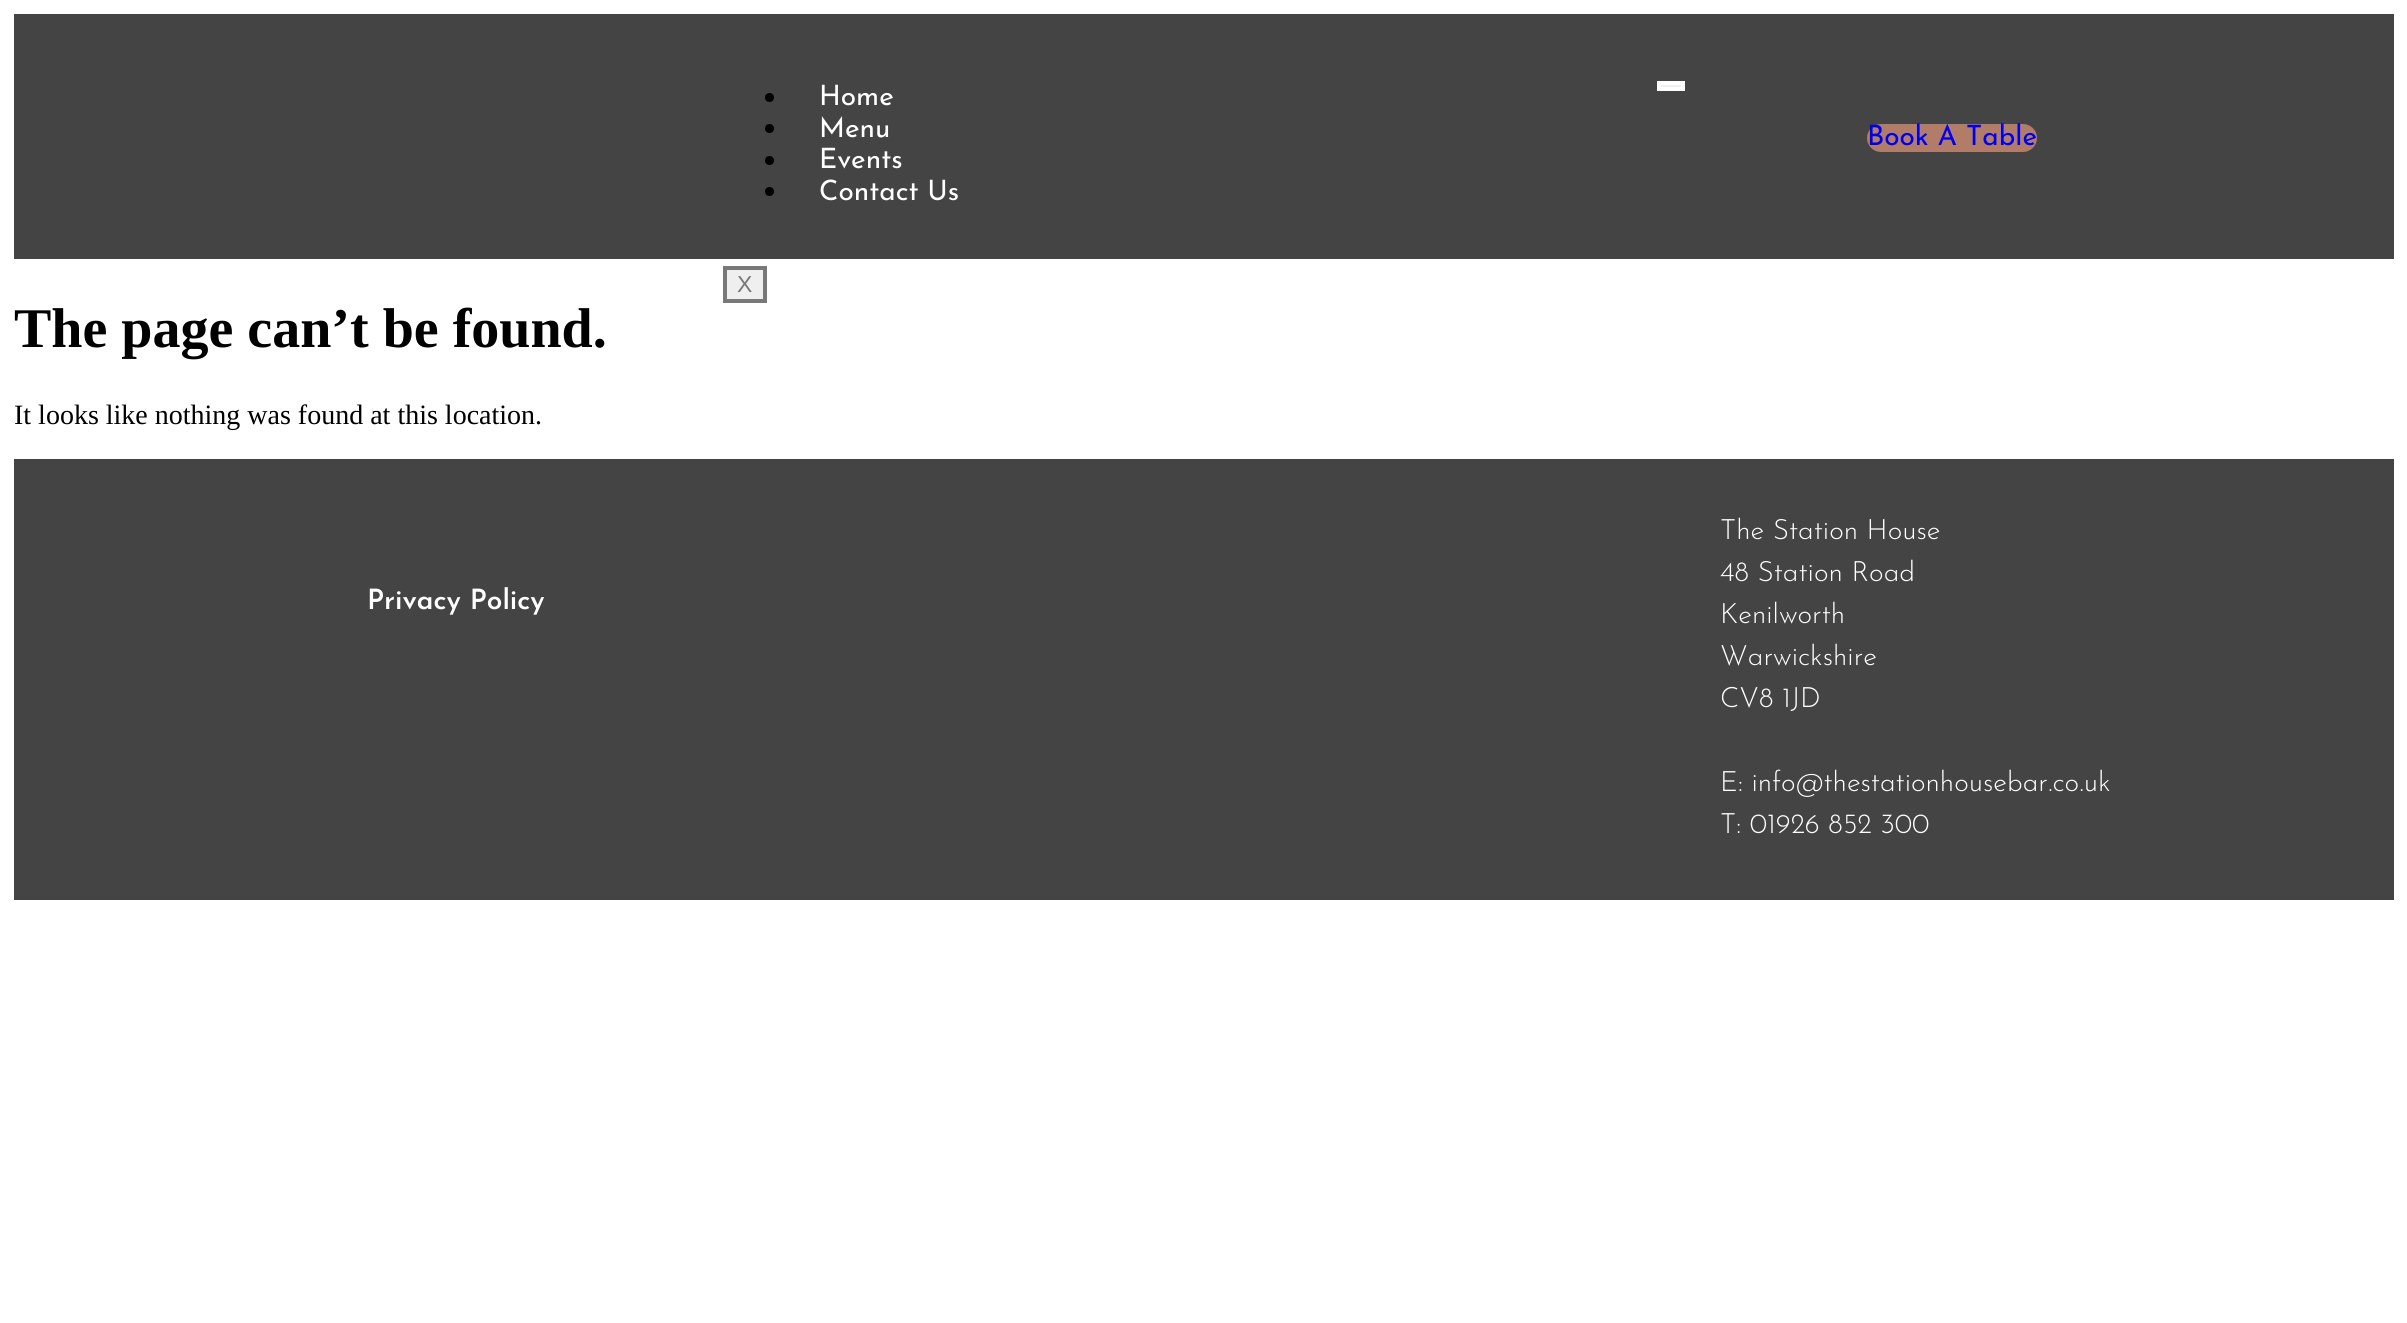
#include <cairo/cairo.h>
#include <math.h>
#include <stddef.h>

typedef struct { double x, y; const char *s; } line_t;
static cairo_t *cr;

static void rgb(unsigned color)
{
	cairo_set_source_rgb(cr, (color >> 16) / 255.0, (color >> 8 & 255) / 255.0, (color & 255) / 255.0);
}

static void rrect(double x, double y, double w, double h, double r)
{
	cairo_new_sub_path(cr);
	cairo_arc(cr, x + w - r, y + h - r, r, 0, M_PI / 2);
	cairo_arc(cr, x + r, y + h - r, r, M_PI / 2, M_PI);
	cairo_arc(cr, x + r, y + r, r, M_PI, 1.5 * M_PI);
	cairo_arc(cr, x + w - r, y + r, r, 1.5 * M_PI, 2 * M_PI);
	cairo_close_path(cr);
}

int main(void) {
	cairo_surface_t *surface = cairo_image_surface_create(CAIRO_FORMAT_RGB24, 2407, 1323);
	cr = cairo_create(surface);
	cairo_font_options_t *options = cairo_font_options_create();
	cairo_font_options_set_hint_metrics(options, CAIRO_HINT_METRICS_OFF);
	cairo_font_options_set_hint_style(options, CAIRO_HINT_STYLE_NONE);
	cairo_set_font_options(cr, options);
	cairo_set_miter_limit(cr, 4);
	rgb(0xffffff);
	cairo_paint(cr);
	rgb(0x444444);
	cairo_rectangle(cr, 14, 14, 2380, 245);
	cairo_fill(cr);
	rgb(0x000000);
	cairo_arc(cr, 769.5, 97.5, 4.5, 0, 2 * M_PI);
	cairo_fill(cr);
	cairo_arc(cr, 769.5, 128.5, 4.5, 0, 2 * M_PI);
	cairo_fill(cr);
	cairo_arc(cr, 769.5, 160.5, 4.5, 0, 2 * M_PI);
	cairo_fill(cr);
	cairo_arc(cr, 769.5, 191.5, 4.5, 0, 2 * M_PI);
	cairo_fill(cr);
	rgb(0xefefef);
	cairo_rectangle(cr, 725, 268, 40, 33);
	cairo_fill_preserve(cr);
	rgb(0x787878);
	cairo_set_line_width(cr, 4);
	cairo_stroke(cr);
	rgb(0xefefef);
	cairo_rectangle(cr, 1659, 83, 24, 6);
	cairo_fill_preserve(cr);
	rgb(0xffffff);
	cairo_stroke(cr);
	rgb(0xb17d68);
	rrect(1867, 124, 170, 28, 14);
	cairo_fill(cr);
	rgb(0x444444);
	cairo_rectangle(cr, 14, 459, 2380, 441);
	cairo_fill(cr);
	cairo_select_font_face(cr, "Josefin Sans", CAIRO_FONT_SLANT_NORMAL, CAIRO_FONT_WEIGHT_NORMAL);
	cairo_set_font_size(cr, 28);
	rgb(0xffffff);
	{
		static const line_t items[] = {
			{819, 105, "Home"},
			{819, 137, "Menu"},
			{819, 168, "Events"},
			{819, 200, "Contact Us"},
		};
		for (size_t i = 0; i < sizeof items / sizeof *items; i++) {
			cairo_move_to(cr, items[i].x, items[i].y);
			cairo_show_text(cr, items[i].s);
		}
	}
	cairo_select_font_face(cr, "Liberation Sans", CAIRO_FONT_SLANT_NORMAL, CAIRO_FONT_WEIGHT_NORMAL);
	cairo_set_font_size(cr, 23);
	rgb(0x787878);
	cairo_move_to(cr, 737, 292);
	cairo_show_text(cr, "X");
	cairo_select_font_face(cr, "Josefin Sans", CAIRO_FONT_SLANT_NORMAL, CAIRO_FONT_WEIGHT_NORMAL);
	cairo_set_font_size(cr, 28);
	rgb(0x0000ee);
	cairo_move_to(cr, 1867, 145);
	cairo_show_text(cr, "Book A Table");
	cairo_select_font_face(cr, "Liberation Serif", CAIRO_FONT_SLANT_NORMAL, CAIRO_FONT_WEIGHT_BOLD);
	cairo_set_font_size(cr, 56);
	rgb(0x000000);
	cairo_move_to(cr, 14, 347);
	cairo_show_text(cr, "The page can’t be found.");
	cairo_select_font_face(cr, "Liberation Serif", CAIRO_FONT_SLANT_NORMAL, CAIRO_FONT_WEIGHT_NORMAL);
	cairo_set_font_size(cr, 28);
	cairo_move_to(cr, 14, 424);
	cairo_show_text(cr, "It looks like nothing was found at this location.");
	cairo_select_font_face(cr, "Josefin Sans SemiBold", CAIRO_FONT_SLANT_NORMAL, CAIRO_FONT_WEIGHT_NORMAL);
	rgb(0xffffff);
	cairo_move_to(cr, 367, 609);
	cairo_show_text(cr, "Privacy Policy");
	cairo_select_font_face(cr, "Josefin Sans Light", CAIRO_FONT_SLANT_NORMAL, CAIRO_FONT_WEIGHT_NORMAL);
	{
		static const line_t items[] = {
			{1720, 539, "The Station House"},
			{1720, 581, "48 Station Road"},
			{1720, 623, "Kenilworth"},
			{1720, 665, "Warwickshire"},
			{1720, 707, "CV8 1JD"},
			{1720, 791, "E: info@thestationhousebar.co.uk"},
			{1720, 833, "T: 01926 852 300"},
		};
		for (size_t i = 0; i < sizeof items / sizeof *items; i++) {
			cairo_move_to(cr, items[i].x, items[i].y);
			cairo_show_text(cr, items[i].s);
		}
	}
	cairo_surface_write_to_png(surface, "page.png");
	cairo_font_options_destroy(options);
	cairo_destroy(cr);
	cairo_surface_destroy(surface);
	return 0;
}
